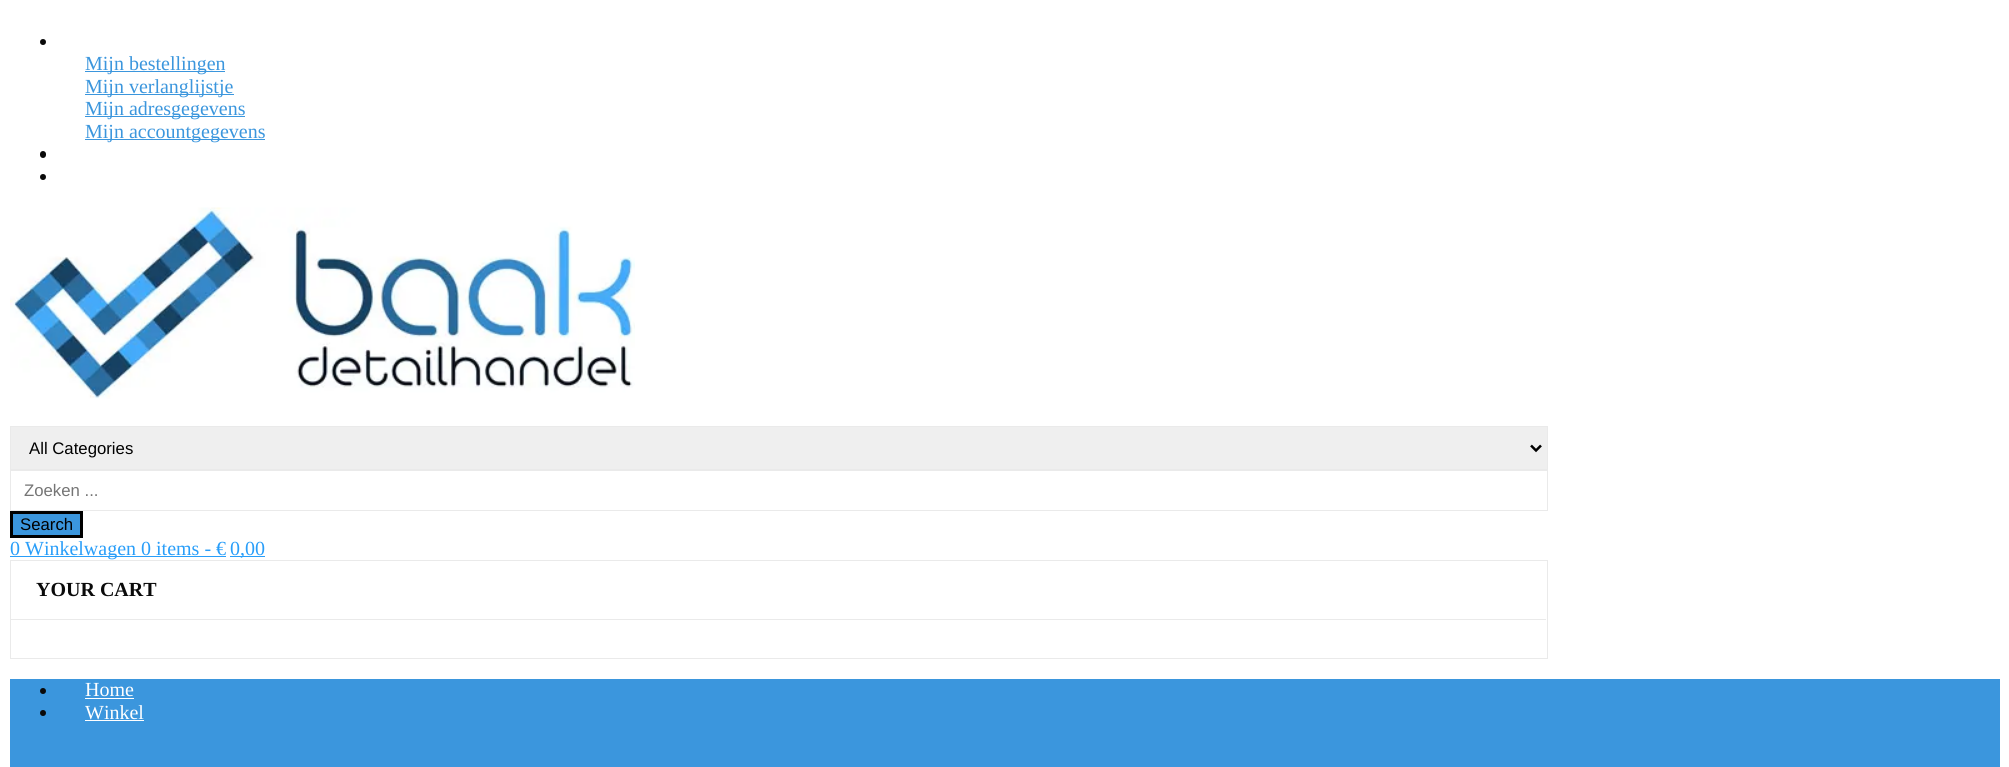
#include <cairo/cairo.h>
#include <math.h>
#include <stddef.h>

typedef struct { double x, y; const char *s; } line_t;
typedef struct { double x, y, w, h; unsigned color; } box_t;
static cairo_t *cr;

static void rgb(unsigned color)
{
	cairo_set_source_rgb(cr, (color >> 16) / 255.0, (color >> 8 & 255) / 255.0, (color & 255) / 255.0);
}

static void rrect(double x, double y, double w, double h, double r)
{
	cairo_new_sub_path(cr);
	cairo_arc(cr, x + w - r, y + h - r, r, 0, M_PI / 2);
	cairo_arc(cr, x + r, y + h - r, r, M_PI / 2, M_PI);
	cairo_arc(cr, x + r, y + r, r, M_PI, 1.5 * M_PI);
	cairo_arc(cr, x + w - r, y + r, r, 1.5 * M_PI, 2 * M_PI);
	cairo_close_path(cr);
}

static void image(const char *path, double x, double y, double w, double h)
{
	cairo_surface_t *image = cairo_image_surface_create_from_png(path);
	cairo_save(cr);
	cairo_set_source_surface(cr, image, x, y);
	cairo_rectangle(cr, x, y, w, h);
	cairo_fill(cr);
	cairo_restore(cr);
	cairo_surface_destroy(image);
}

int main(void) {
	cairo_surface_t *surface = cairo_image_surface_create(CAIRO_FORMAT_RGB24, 2009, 767);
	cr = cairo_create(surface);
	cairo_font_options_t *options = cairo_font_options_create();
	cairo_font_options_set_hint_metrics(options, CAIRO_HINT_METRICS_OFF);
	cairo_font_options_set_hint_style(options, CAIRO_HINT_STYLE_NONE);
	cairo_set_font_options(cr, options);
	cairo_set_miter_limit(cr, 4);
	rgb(0xffffff);
	cairo_paint(cr);
	rgb(0x0a0a0a);
	cairo_arc(cr, 43, 42, 3, 0, 2 * M_PI);
	cairo_fill(cr);
	{
		static const box_t items[] = {
			{85, 71, 140, 1, 0x3b96dd},
			{85, 94, 149, 1, 0x3b96dd},
			{85, 116, 160, 1, 0x3b96dd},
			{85, 139, 180, 1, 0x3b96dd},
		};
		for (size_t i = 0; i < sizeof items / sizeof *items; i++) {
			rgb(items[i].color);
			cairo_rectangle(cr, items[i].x, items[i].y, items[i].w, items[i].h);
			cairo_fill(cr);
		}
	}
	rgb(0x0a0a0a);
	rrect(40, 151, 6, 7, 3);
	cairo_fill(cr);
	cairo_arc(cr, 43, 177, 3, 0, 2 * M_PI);
	cairo_fill(cr);
	image("img/1.png", 10, 207, 625, 192);
	rgb(0xefefef);
	cairo_rectangle(cr, 10.5, 426.5, 1537, 43);
	cairo_fill_preserve(cr);
	rgb(0xeaeaea);
	cairo_set_line_width(cr, 1);
	cairo_stroke(cr);
	cairo_new_path(cr);
	cairo_move_to(cr, 1531, 445.5);
	cairo_line_to(cr, 1536, 450.5);
	cairo_line_to(cr, 1541, 445.5);
	rgb(0x000000);
	cairo_set_line_width(cr, 2.5);
	cairo_stroke(cr);
	cairo_rectangle(cr, 10.5, 470.5, 1537, 40);
	rgb(0xeaeaea);
	cairo_set_line_width(cr, 1);
	cairo_stroke(cr);
	rgb(0x3b96dd);
	cairo_rectangle(cr, 11.5, 512.5, 70, 24);
	cairo_fill_preserve(cr);
	rgb(0x000000);
	cairo_set_line_width(cr, 3);
	cairo_stroke(cr);
	rgb(0x299ef9);
	cairo_rectangle(cr, 10, 556, 216, 1);
	cairo_fill(cr);
	cairo_rectangle(cr, 230, 556, 35, 1);
	cairo_fill(cr);
	cairo_rectangle(cr, 10.5, 560.5, 1537, 98);
	rgb(0xeaeaea);
	cairo_set_line_width(cr, 1);
	cairo_stroke(cr);
	cairo_rectangle(cr, 11, 619, 1535, 1);
	cairo_fill(cr);
	rgb(0x3b96dd);
	cairo_rectangle(cr, 10, 679, 1990, 88);
	cairo_fill(cr);
	rgb(0x0a0a0a);
	cairo_arc(cr, 43, 691, 3, 0, 2 * M_PI);
	cairo_fill(cr);
	rgb(0xffffff);
	cairo_rectangle(cr, 85, 698, 49, 1);
	cairo_fill(cr);
	rgb(0x0a0a0a);
	cairo_arc(cr, 43, 713, 3, 0, 2 * M_PI);
	cairo_fill(cr);
	rgb(0xffffff);
	cairo_rectangle(cr, 85, 720, 59, 1);
	cairo_fill(cr);
	cairo_select_font_face(cr, "Liberation Serif", CAIRO_FONT_SLANT_NORMAL, CAIRO_FONT_WEIGHT_NORMAL);
	cairo_set_font_size(cr, 20);
	rgb(0x3b96dd);
	{
		static const line_t items[] = {
			{85, 70, "Mijn bestellingen"},
			{85, 93, "Mijn verlanglijstje"},
			{85, 115, "Mijn adresgegevens"},
			{85, 138, "Mijn accountgegevens"},
		};
		for (size_t i = 0; i < sizeof items / sizeof *items; i++) {
			cairo_move_to(cr, items[i].x, items[i].y);
			cairo_show_text(cr, items[i].s);
		}
	}
	cairo_select_font_face(cr, "Liberation Sans", CAIRO_FONT_SLANT_NORMAL, CAIRO_FONT_WEIGHT_NORMAL);
	cairo_set_font_size(cr, 16.75);
	rgb(0x000000);
	cairo_move_to(cr, 29, 454);
	cairo_show_text(cr, "All Categories");
	rgb(0x757575);
	cairo_move_to(cr, 24, 496);
	cairo_show_text(cr, "Zoeken ...");
	rgb(0x000000);
	cairo_move_to(cr, 20, 530);
	cairo_show_text(cr, "Search");
	cairo_select_font_face(cr, "Liberation Serif", CAIRO_FONT_SLANT_NORMAL, CAIRO_FONT_WEIGHT_NORMAL);
	cairo_set_font_size(cr, 20);
	rgb(0x299ef9);
	cairo_move_to(cr, 10, 555);
	cairo_show_text(cr, "0 Winkelwagen 0 items - €");
	cairo_move_to(cr, 230, 555);
	cairo_show_text(cr, "0,00");
	cairo_select_font_face(cr, "Liberation Serif", CAIRO_FONT_SLANT_NORMAL, CAIRO_FONT_WEIGHT_BOLD);
	rgb(0x0a0a0a);
	cairo_move_to(cr, 36, 596);
	cairo_show_text(cr, "YOUR CART");
	cairo_select_font_face(cr, "Liberation Serif", CAIRO_FONT_SLANT_NORMAL, CAIRO_FONT_WEIGHT_NORMAL);
	rgb(0xffffff);
	cairo_move_to(cr, 85, 696);
	cairo_show_text(cr, "Home");
	cairo_move_to(cr, 85, 719);
	cairo_show_text(cr, "Winkel");
	cairo_surface_write_to_png(surface, "page.png");
	cairo_font_options_destroy(options);
	cairo_destroy(cr);
	cairo_surface_destroy(surface);
	return 0;
}
